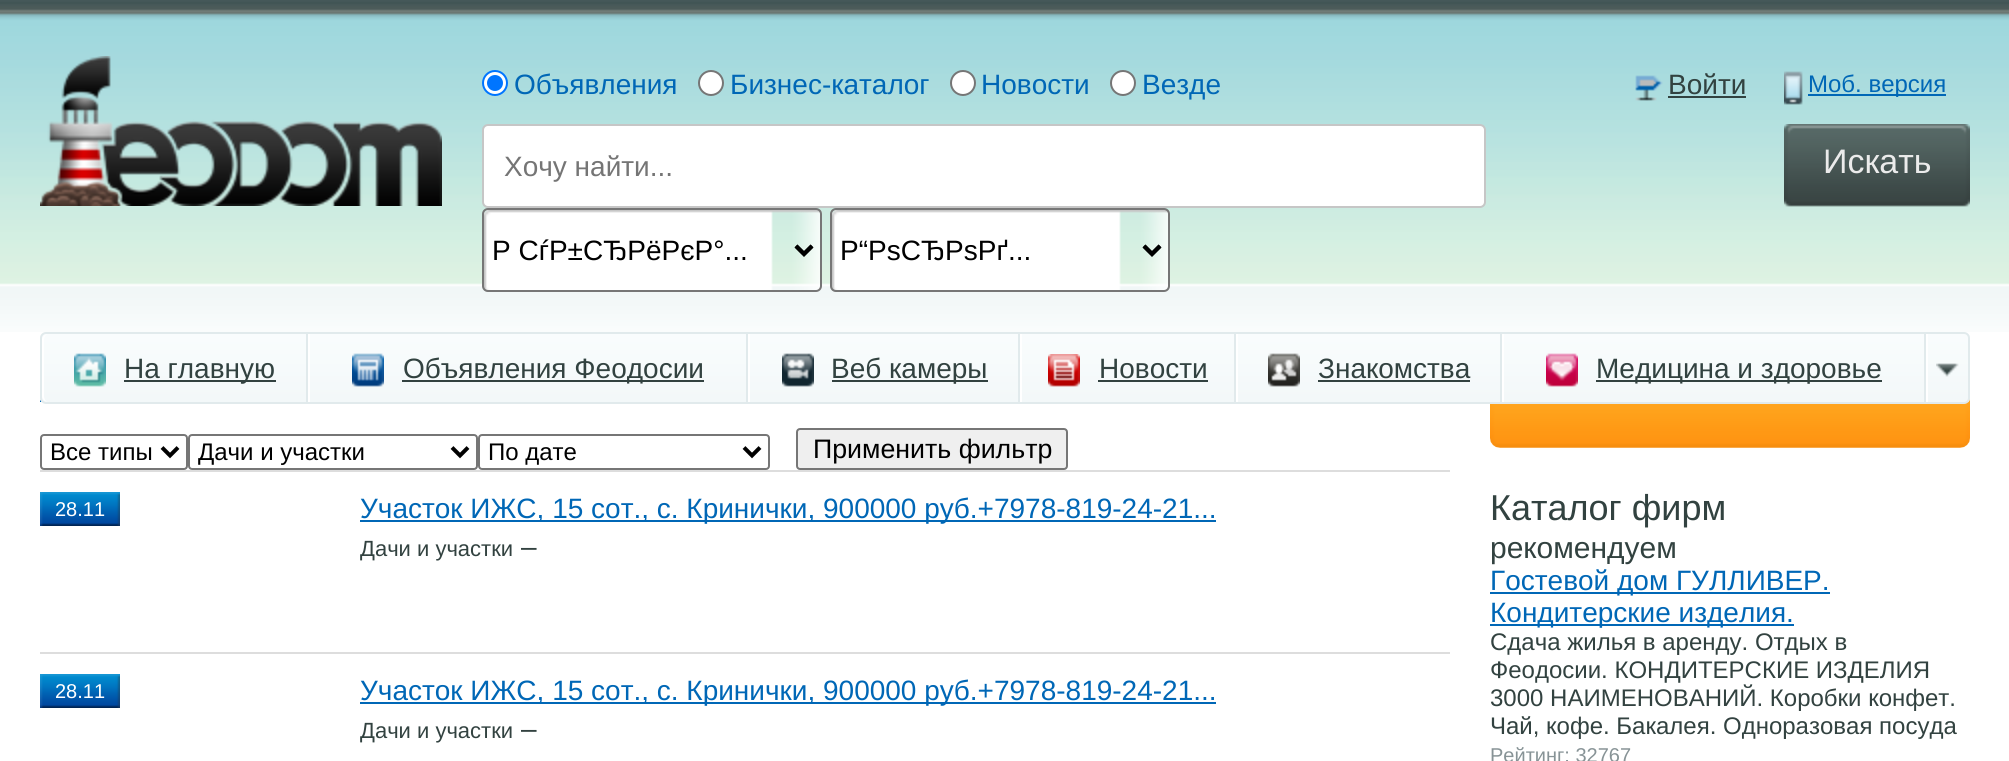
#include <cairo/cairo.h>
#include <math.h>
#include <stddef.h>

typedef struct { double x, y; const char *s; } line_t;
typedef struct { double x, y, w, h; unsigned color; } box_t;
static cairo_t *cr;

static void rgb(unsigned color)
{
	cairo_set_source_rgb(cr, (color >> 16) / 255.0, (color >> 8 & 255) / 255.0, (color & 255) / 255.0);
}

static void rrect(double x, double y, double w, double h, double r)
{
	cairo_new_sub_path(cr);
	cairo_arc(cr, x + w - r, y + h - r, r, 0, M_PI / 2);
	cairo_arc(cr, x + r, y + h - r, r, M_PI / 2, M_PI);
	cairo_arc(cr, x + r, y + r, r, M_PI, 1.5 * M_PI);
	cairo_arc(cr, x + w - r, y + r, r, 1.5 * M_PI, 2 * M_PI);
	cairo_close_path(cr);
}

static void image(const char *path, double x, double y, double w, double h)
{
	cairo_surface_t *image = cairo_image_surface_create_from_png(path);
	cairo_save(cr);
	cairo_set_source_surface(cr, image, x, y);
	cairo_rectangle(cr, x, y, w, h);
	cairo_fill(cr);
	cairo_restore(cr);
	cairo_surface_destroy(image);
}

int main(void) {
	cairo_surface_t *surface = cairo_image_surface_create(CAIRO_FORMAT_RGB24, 2009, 761);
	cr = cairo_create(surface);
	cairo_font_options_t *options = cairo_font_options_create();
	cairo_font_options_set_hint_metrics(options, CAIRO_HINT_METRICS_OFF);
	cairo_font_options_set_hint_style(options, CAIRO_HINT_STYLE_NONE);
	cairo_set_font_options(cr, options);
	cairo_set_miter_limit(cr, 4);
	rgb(0xffffff);
	cairo_paint(cr);
	image("img/1.png", 0, 0, 2009, 332);
	image("img/2.png", 40, 56, 402, 150);
	rgb(0xffffff);
	cairo_arc(cr, 495, 83, 12, 0, 2 * M_PI);
	cairo_fill_preserve(cr);
	rgb(0x0075ff);
	cairo_stroke(cr);
	cairo_arc(cr, 495, 83, 8, 0, 2 * M_PI);
	cairo_fill(cr);
	rgb(0xffffff);
	cairo_arc(cr, 711, 83, 12, 0, 2 * M_PI);
	cairo_fill_preserve(cr);
	rgb(0x767676);
	cairo_stroke(cr);
	rgb(0xffffff);
	cairo_arc(cr, 963, 83, 12, 0, 2 * M_PI);
	cairo_fill_preserve(cr);
	rgb(0x767676);
	cairo_stroke(cr);
	rgb(0xffffff);
	cairo_arc(cr, 1123, 83, 12, 0, 2 * M_PI);
	cairo_fill_preserve(cr);
	rgb(0x767676);
	cairo_stroke(cr);
	image("img/3.png", 1635, 75, 28, 26);
	rgb(0x324240);
	cairo_rectangle(cr, 1668, 96, 78, 2);
	cairo_fill(cr);
	rgb(0xffffff);
	rrect(483, 125, 1002, 82, 5);
	cairo_fill_preserve(cr);
	rgb(0xc6c6c6);
	cairo_stroke(cr);
	image("img/4.png", 484, 210, 338, 82);
	rrect(483, 209, 338, 82, 5);
	rgb(0x767676);
	cairo_stroke(cr);
	cairo_new_path(cr);
	cairo_move_to(cr, 796, 246);
	cairo_line_to(cr, 804, 254);
	cairo_line_to(cr, 812, 246);
	rgb(0x000000);
	cairo_set_line_width(cr, 4);
	cairo_stroke(cr);
	image("img/4.png", 832, 210, 338, 82);
	rrect(831, 209, 338, 82, 5);
	rgb(0x767676);
	cairo_set_line_width(cr, 2);
	cairo_stroke(cr);
	cairo_new_path(cr);
	cairo_move_to(cr, 1144, 246);
	cairo_line_to(cr, 1152, 254);
	cairo_line_to(cr, 1160, 246);
	rgb(0x000000);
	cairo_set_line_width(cr, 4);
	cairo_stroke(cr);
	image("img/5.png", 1784, 71, 19, 34);
	rgb(0x0067b6);
	cairo_rectangle(cr, 1808, 94, 138, 2);
	cairo_fill(cr);
	image("img/6.png", 1784, 124, 186, 83);
	cairo_rectangle(cr, 40, 400, 2, 2);
	cairo_fill(cr);
	image("img/16.png", 1490, 398, 480, 50);
	image("img/7.png", 40, 334, 1930, 68);
	rrect(41, 333, 1928, 70, 5);
	rgb(0xe1eaec);
	cairo_set_line_width(cr, 2);
	cairo_stroke(cr);
	cairo_rectangle(cr, 306, 334, 2, 68);
	cairo_fill(cr);
	rgb(0xffffff);
	cairo_new_path(cr);
	cairo_move_to(cr, 48, 334);
	cairo_curve_to(cr, 45, 334, 42, 337, 42, 340);
	cairo_line_to(cr, 42, 396);
	cairo_curve_to(cr, 42, 399, 45, 402, 48, 402);
	cairo_curve_to(cr, 46, 402, 44, 399, 44, 396);
	cairo_line_to(cr, 44, 340);
	cairo_curve_to(cr, 44, 337, 46, 334, 48, 334);
	cairo_close_path(cr);
	cairo_fill(cr);
	image("img/8.png", 74, 353, 32, 34);
	{
		static const box_t items[] = {
			{124, 380, 152, 2, 0x324240},
			{746, 334, 2, 68, 0xe1eaec},
			{308, 334, 2, 68, 0xffffff},
		};
		for (size_t i = 0; i < sizeof items / sizeof *items; i++) {
			rgb(items[i].color);
			cairo_rectangle(cr, items[i].x, items[i].y, items[i].w, items[i].h);
			cairo_fill(cr);
		}
	}
	image("img/9.png", 352, 353, 32, 34);
	{
		static const box_t items[] = {
			{402, 380, 302, 2, 0x324240},
			{1018, 334, 2, 68, 0xe1eaec},
			{748, 334, 2, 68, 0xffffff},
		};
		for (size_t i = 0; i < sizeof items / sizeof *items; i++) {
			rgb(items[i].color);
			cairo_rectangle(cr, items[i].x, items[i].y, items[i].w, items[i].h);
			cairo_fill(cr);
		}
	}
	image("img/10.png", 782, 353, 32, 34);
	{
		static const box_t items[] = {
			{832, 380, 156, 2, 0x324240},
			{1234, 334, 2, 68, 0xe1eaec},
			{1020, 334, 2, 68, 0xffffff},
		};
		for (size_t i = 0; i < sizeof items / sizeof *items; i++) {
			rgb(items[i].color);
			cairo_rectangle(cr, items[i].x, items[i].y, items[i].w, items[i].h);
			cairo_fill(cr);
		}
	}
	image("img/11.png", 1048, 354, 32, 33);
	{
		static const box_t items[] = {
			{1098, 380, 110, 2, 0x324240},
			{1500, 334, 2, 68, 0xe1eaec},
			{1236, 334, 2, 68, 0xffffff},
		};
		for (size_t i = 0; i < sizeof items / sizeof *items; i++) {
			rgb(items[i].color);
			cairo_rectangle(cr, items[i].x, items[i].y, items[i].w, items[i].h);
			cairo_fill(cr);
		}
	}
	image("img/12.png", 1268, 353, 32, 34);
	{
		static const box_t items[] = {
			{1318, 380, 152, 2, 0x324240},
			{1924, 334, 2, 68, 0xe1eaec},
			{1502, 334, 2, 68, 0xffffff},
		};
		for (size_t i = 0; i < sizeof items / sizeof *items; i++) {
			rgb(items[i].color);
			cairo_rectangle(cr, items[i].x, items[i].y, items[i].w, items[i].h);
			cairo_fill(cr);
		}
	}
	image("img/13.png", 1546, 353, 32, 34);
	rgb(0x324240);
	cairo_rectangle(cr, 1596, 380, 286, 2);
	cairo_fill(cr);
	rgb(0xffffff);
	cairo_rectangle(cr, 1926, 334, 2, 68);
	cairo_fill(cr);
	image("img/14.png", 1936, 363, 23, 14);
	rrect(41, 435, 146, 34, 3);
	rgb(0x767676);
	cairo_stroke(cr);
	cairo_new_path(cr);
	cairo_move_to(cr, 162, 447.5);
	cairo_line_to(cr, 170, 455.5);
	cairo_line_to(cr, 178, 447.5);
	rgb(0x000000);
	cairo_set_line_width(cr, 4);
	cairo_stroke(cr);
	rrect(189, 435, 288, 34, 3);
	rgb(0x767676);
	cairo_set_line_width(cr, 2);
	cairo_stroke(cr);
	cairo_new_path(cr);
	cairo_move_to(cr, 452, 447.5);
	cairo_line_to(cr, 460, 455.5);
	cairo_line_to(cr, 468, 447.5);
	rgb(0x000000);
	cairo_set_line_width(cr, 4);
	cairo_stroke(cr);
	rrect(479, 435, 290, 34, 3);
	rgb(0x767676);
	cairo_set_line_width(cr, 2);
	cairo_stroke(cr);
	cairo_new_path(cr);
	cairo_move_to(cr, 744, 447.5);
	cairo_line_to(cr, 752, 455.5);
	cairo_line_to(cr, 760, 447.5);
	rgb(0x000000);
	cairo_set_line_width(cr, 4);
	cairo_stroke(cr);
	rgb(0xefefef);
	rrect(797, 429, 270, 40, 3);
	cairo_fill_preserve(cr);
	rgb(0x767676);
	cairo_set_line_width(cr, 2);
	cairo_stroke(cr);
	rgb(0xdddddd);
	cairo_rectangle(cr, 40, 470, 1410, 2);
	cairo_fill(cr);
	image("img/15.png", 40, 492, 80, 34);
	rgb(0x0067b6);
	cairo_rectangle(cr, 360, 520, 856, 2);
	cairo_fill(cr);
	rgb(0xdddddd);
	cairo_rectangle(cr, 40, 652, 1410, 2);
	cairo_fill(cr);
	image("img/15.png", 40, 674, 80, 34);
	{
		static const box_t items[] = {
			{360, 702, 856, 2, 0x0067b6},
			{1490, 592, 340, 2, 0x0067b6},
			{1490, 624, 304, 2, 0x0067b6},
		};
		for (size_t i = 0; i < sizeof items / sizeof *items; i++) {
			rgb(items[i].color);
			cairo_rectangle(cr, items[i].x, items[i].y, items[i].w, items[i].h);
			cairo_fill(cr);
		}
	}
	cairo_select_font_face(cr, "Liberation Sans", CAIRO_FONT_SLANT_NORMAL, CAIRO_FONT_WEIGHT_NORMAL);
	cairo_set_font_size(cr, 28);
	{
		static const line_t items[] = {
			{514, 94, "Объявления"},
			{730, 94, "Бизнес-каталог"},
			{981, 94, "Новости"},
			{1142, 94, "Везде"},
		};
		for (size_t i = 0; i < sizeof items / sizeof *items; i++) {
			cairo_move_to(cr, items[i].x, items[i].y);
			cairo_show_text(cr, items[i].s);
		}
	}
	rgb(0x324240);
	cairo_move_to(cr, 1668, 94);
	cairo_show_text(cr, "Войти");
	rgb(0x757575);
	cairo_move_to(cr, 504, 176);
	cairo_show_text(cr, "Хочу найти...");
	rgb(0x000000);
	cairo_move_to(cr, 492, 260);
	cairo_show_text(cr, "Р СѓР±СЂРёРєР°...");
	cairo_move_to(cr, 840, 260);
	cairo_show_text(cr, "Р“РѕСЂРѕРґ...");
	cairo_set_font_size(cr, 24);
	rgb(0x0067b6);
	cairo_move_to(cr, 1808, 92);
	cairo_show_text(cr, "Моб. версия");
	cairo_set_font_size(cr, 34);
	rgb(0xebebeb);
	cairo_move_to(cr, 1823, 173);
	cairo_show_text(cr, "Искать");
	cairo_set_font_size(cr, 28);
	rgb(0x324240);
	{
		static const line_t items[] = {
			{124, 378, "На главную"},
			{403, 378, "Объявления Феодосии"},
			{831, 378, "Веб камеры"},
			{1099, 378, "Новости"},
			{1318, 378, "Знакомства"},
			{1596, 378, "Медицина и здоровье"},
		};
		for (size_t i = 0; i < sizeof items / sizeof *items; i++) {
			cairo_move_to(cr, items[i].x, items[i].y);
			cairo_show_text(cr, items[i].s);
		}
	}
	cairo_set_font_size(cr, 24);
	rgb(0x000000);
	{
		static const line_t items[] = {
			{50, 460, "Все типы"},
			{198, 460, "Дачи и участки"},
			{488, 460, "По дате"},
		};
		for (size_t i = 0; i < sizeof items / sizeof *items; i++) {
			cairo_move_to(cr, items[i].x, items[i].y);
			cairo_show_text(cr, items[i].s);
		}
	}
	cairo_set_font_size(cr, 26.75);
	cairo_move_to(cr, 813, 458);
	cairo_show_text(cr, "Применить фильтр");
	cairo_set_font_size(cr, 20);
	rgb(0xffffff);
	cairo_move_to(cr, 55, 516);
	cairo_show_text(cr, "28.11");
	cairo_set_font_size(cr, 28);
	rgb(0x0067b6);
	cairo_move_to(cr, 360, 518);
	cairo_show_text(cr, "Участок ИЖС, 15 сот., с. Кринички, 900000 руб.+7978-819-24-21...");
	cairo_set_font_size(cr, 22);
	rgb(0x324240);
	cairo_move_to(cr, 360, 556);
	cairo_show_text(cr, "Дачи и участки");
	cairo_set_font_size(cr, 28);
	cairo_move_to(cr, 521, 556);
	cairo_show_text(cr, "–");
	cairo_set_font_size(cr, 20);
	rgb(0xffffff);
	cairo_move_to(cr, 55, 698);
	cairo_show_text(cr, "28.11");
	cairo_set_font_size(cr, 28);
	rgb(0x0067b6);
	cairo_move_to(cr, 360, 700);
	cairo_show_text(cr, "Участок ИЖС, 15 сот., с. Кринички, 900000 руб.+7978-819-24-21...");
	cairo_set_font_size(cr, 22);
	rgb(0x324240);
	cairo_move_to(cr, 360, 738);
	cairo_show_text(cr, "Дачи и участки");
	cairo_set_font_size(cr, 28);
	cairo_move_to(cr, 521, 738);
	cairo_show_text(cr, "–");
	cairo_set_font_size(cr, 36);
	cairo_move_to(cr, 1490, 520);
	cairo_show_text(cr, "Каталог фирм");
	cairo_set_font_size(cr, 30);
	cairo_move_to(cr, 1490, 558);
	cairo_show_text(cr, "рекомендуем");
	cairo_set_font_size(cr, 28);
	rgb(0x0067b6);
	cairo_move_to(cr, 1490, 590);
	cairo_show_text(cr, "Гостевой дом ГУЛЛИВЕР.");
	cairo_move_to(cr, 1490, 622);
	cairo_show_text(cr, "Кондитерские изделия.");
	cairo_set_font_size(cr, 24);
	rgb(0x324240);
	{
		static const line_t items[] = {
			{1490, 650, "Сдача жилья в аренду. Отдых в"},
			{1490, 678, "Феодосии. КОНДИТЕРСКИЕ ИЗДЕЛИЯ"},
			{1490, 706, "3000 НАИМЕНОВАНИЙ. Коробки конфет."},
			{1490, 734, "Чай, кофе. Бакалея. Одноразовая посуда"},
		};
		for (size_t i = 0; i < sizeof items / sizeof *items; i++) {
			cairo_move_to(cr, items[i].x, items[i].y);
			cairo_show_text(cr, items[i].s);
		}
	}
	cairo_set_font_size(cr, 20);
	rgb(0x879396);
	cairo_move_to(cr, 1490, 762);
	cairo_show_text(cr, "Рейтинг: 32767");
	cairo_surface_write_to_png(surface, "page.png");
	cairo_font_options_destroy(options);
	cairo_destroy(cr);
	cairo_surface_destroy(surface);
	return 0;
}
